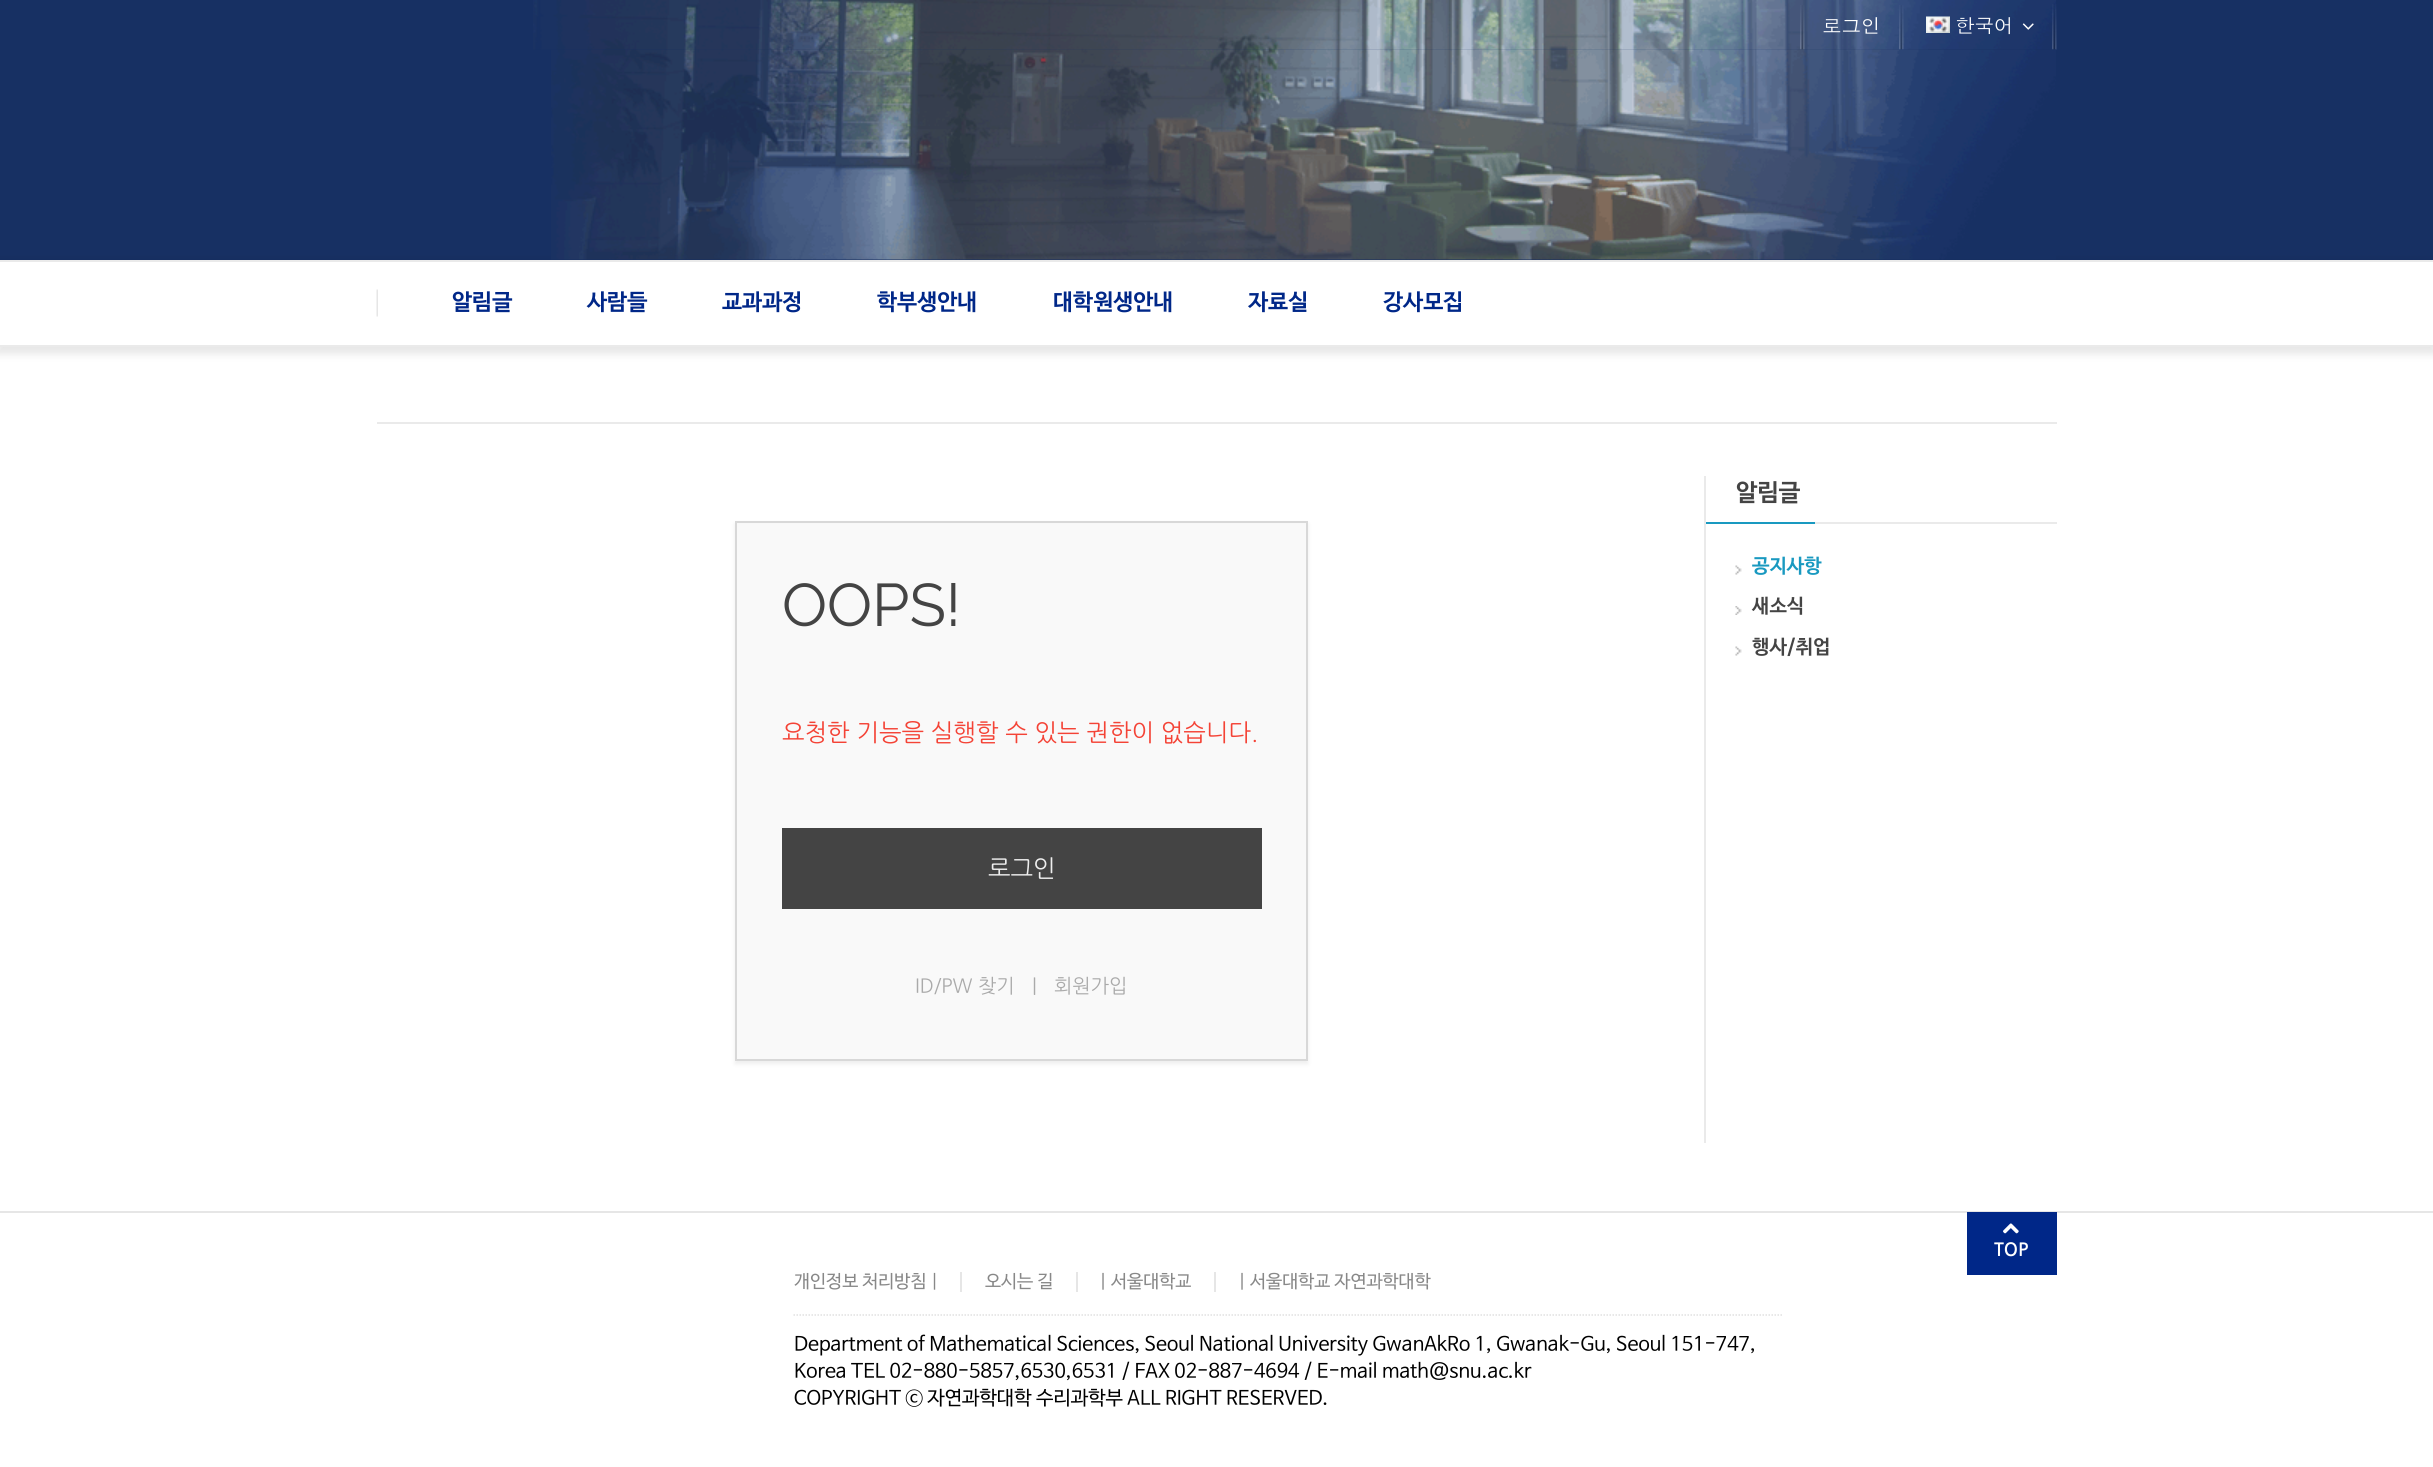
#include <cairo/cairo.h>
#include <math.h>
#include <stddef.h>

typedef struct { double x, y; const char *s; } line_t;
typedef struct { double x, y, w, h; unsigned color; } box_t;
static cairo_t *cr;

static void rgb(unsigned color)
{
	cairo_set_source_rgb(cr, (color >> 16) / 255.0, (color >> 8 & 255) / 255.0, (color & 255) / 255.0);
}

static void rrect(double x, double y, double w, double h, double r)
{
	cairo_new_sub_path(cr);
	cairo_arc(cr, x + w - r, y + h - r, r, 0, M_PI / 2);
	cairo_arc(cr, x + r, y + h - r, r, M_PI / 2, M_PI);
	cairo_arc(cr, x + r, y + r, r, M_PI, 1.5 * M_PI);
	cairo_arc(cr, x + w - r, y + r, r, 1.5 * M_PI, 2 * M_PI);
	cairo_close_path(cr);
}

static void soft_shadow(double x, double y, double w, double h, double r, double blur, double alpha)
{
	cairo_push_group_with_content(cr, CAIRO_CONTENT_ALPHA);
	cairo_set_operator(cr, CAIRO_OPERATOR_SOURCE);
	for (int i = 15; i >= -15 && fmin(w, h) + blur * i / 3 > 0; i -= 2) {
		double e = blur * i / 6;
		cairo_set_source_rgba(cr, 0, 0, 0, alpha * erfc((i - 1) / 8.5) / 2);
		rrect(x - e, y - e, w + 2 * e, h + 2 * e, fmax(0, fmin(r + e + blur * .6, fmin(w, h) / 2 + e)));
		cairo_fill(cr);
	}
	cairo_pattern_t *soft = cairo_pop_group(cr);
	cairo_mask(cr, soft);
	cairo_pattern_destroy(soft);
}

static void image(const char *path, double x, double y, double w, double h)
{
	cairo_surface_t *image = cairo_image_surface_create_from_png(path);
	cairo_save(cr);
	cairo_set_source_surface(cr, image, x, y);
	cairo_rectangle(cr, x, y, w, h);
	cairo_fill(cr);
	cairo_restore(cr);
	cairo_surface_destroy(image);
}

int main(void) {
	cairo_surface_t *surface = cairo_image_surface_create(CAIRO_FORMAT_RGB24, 2433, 1467);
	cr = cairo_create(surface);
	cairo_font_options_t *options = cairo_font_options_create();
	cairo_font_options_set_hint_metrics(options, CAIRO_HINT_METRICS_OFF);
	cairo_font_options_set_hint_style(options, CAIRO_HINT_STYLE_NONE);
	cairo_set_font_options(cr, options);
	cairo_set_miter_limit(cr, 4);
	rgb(0xffffff);
	cairo_paint(cr);
	rgb(0x173063);
	cairo_rectangle(cr, 0, 0, 2433, 260);
	cairo_fill(cr);
	image("img/1.png", 533, 0, 1523, 50);
	image("img/2.png", 684, 49, 1244, 1);
	image("img/3.png", 1800, 5, 5, 45);
	image("img/4.png", 1899, 5, 5, 45);
	image("img/5.png", 2052, 4, 5, 46);
	image("img/6.png", 1926, 16, 24, 17);
	image("img/7.png", 2022, 23, 12, 7);
	rgb(0x000000);
	soft_shadow(-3, 261, 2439, 93, 0, 4.5, 0.1);
	image("img/8.png", 551, 49, 1505, 211);
	{
		static const box_t items[] = {
			{0, 262, 2433, 83, 0xffffff},
			{0, 260, 2433, 2, 0xeaeaea},
			{0, 345, 2433, 2, 0xeaeaea},
		};
		for (size_t i = 0; i < sizeof items / sizeof *items; i++) {
			rgb(items[i].color);
			cairo_rectangle(cr, items[i].x, items[i].y, items[i].w, items[i].h);
			cairo_fill(cr);
		}
	}
	image("img/9.png", 376, 289, 2, 28);
	cairo_rectangle(cr, 377, 422, 1680, 2);
	cairo_fill(cr);
	cairo_rectangle(cr, 1704, 476, 2, 667);
	cairo_fill(cr);
	rgb(0xeeeeee);
	soft_shadow(735, 524, 573, 540, 0, 2, 1);
	rgb(0xf9f9f9);
	cairo_rectangle(cr, 737, 524, 569, 535);
	cairo_fill(cr);
	cairo_rectangle(cr, 736, 522, 571, 538);
	rgb(0xd8d8d8);
	cairo_stroke(cr);
	{
		static const box_t items[] = {
			{782, 828, 480, 81, 0x444444},
			{1815, 522, 242, 2, 0xeaeaea},
			{1706, 522, 109, 2, 0x1999c0},
		};
		for (size_t i = 0; i < sizeof items / sizeof *items; i++) {
			rgb(items[i].color);
			cairo_rectangle(cr, items[i].x, items[i].y, items[i].w, items[i].h);
			cairo_fill(cr);
		}
	}
	image("img/10.png", 1735, 565, 7, 10);
	image("img/11.png", 1735, 606, 7, 9);
	image("img/10.png", 1735, 646, 7, 10);
	rgb(0xe6e6e6);
	cairo_rectangle(cr, 0, 1211, 2433, 2);
	cairo_fill(cr);
	rgb(0x002788);
	cairo_rectangle(cr, 1967, 1212, 90, 63);
	cairo_fill(cr);
	image("img/12.png", 2003, 1223, 16, 11);
	{
		static const box_t items[] = {
			{960, 1272, 2, 20, 0xe6e6e6},
			{1076, 1272, 2, 20, 0xe6e6e6},
			{1214, 1272, 2, 20, 0xe6e6e6},
		};
		for (size_t i = 0; i < sizeof items / sizeof *items; i++) {
			rgb(items[i].color);
			cairo_rectangle(cr, items[i].x, items[i].y, items[i].w, items[i].h);
			cairo_fill(cr);
		}
	}
	cairo_new_path(cr);
	cairo_move_to(cr, 793.5, 1315);
	cairo_line_to(cr, 1783.5, 1315);
	rgb(0xe0e0e0);
	cairo_set_line_width(cr, 1.5);
	cairo_set_dash(cr, (double[]){1.5, 1.5}, 2, 0);
	cairo_stroke(cr);
	cairo_select_font_face(cr, "Dotum", CAIRO_FONT_SLANT_NORMAL, CAIRO_FONT_WEIGHT_NORMAL);
	cairo_set_font_size(cr, 19.5);
	rgb(0xffffff);
	cairo_move_to(cr, 1822, 33);
	cairo_show_text(cr, "로그인");
	cairo_move_to(cr, 1955, 33);
	cairo_show_text(cr, "한국어");
	cairo_select_font_face(cr, "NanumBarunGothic", CAIRO_FONT_SLANT_NORMAL, CAIRO_FONT_WEIGHT_BOLD);
	cairo_set_font_size(cr, 22.5);
	rgb(0x002788);
	{
		static const line_t items[] = {
			{452, 309, "알림글"},
			{587, 309, "사람들"},
			{722, 309, "교과과정"},
			{877, 309, "학부생안내"},
			{1053, 309, "대학원생안내"},
			{1248, 309, "자료실"},
			{1383, 309, "강사모집"},
		};
		for (size_t i = 0; i < sizeof items / sizeof *items; i++) {
			cairo_move_to(cr, items[i].x, items[i].y);
			cairo_show_text(cr, items[i].s);
		}
	}
	cairo_select_font_face(cr, "Raleway", CAIRO_FONT_SLANT_NORMAL, CAIRO_FONT_WEIGHT_NORMAL);
	cairo_set_font_size(cr, 60);
	rgb(0x444444);
	cairo_move_to(cr, 782, 626);
	cairo_show_text(cr, "OOPS!");
	cairo_select_font_face(cr, "NanumGothic", CAIRO_FONT_SLANT_NORMAL, CAIRO_FONT_WEIGHT_NORMAL);
	cairo_set_font_size(cr, 24);
	rgb(0xf44336);
	cairo_move_to(cr, 782, 740);
	cairo_show_text(cr, "요청한 기능을 실행할 수 있는 권한이 없습니다.");
	rgb(0xeeeeee);
	cairo_move_to(cr, 988, 876);
	cairo_show_text(cr, "로그인");
	cairo_set_font_size(cr, 19.5);
	rgb(0xaaaaaa);
	{
		static const line_t items[] = {
			{915, 992, "ID/PW 찾기"},
			{1032, 992, "|"},
			{1054, 992, "회원가입"},
		};
		for (size_t i = 0; i < sizeof items / sizeof *items; i++) {
			cairo_move_to(cr, items[i].x, items[i].y);
			cairo_show_text(cr, items[i].s);
		}
	}
	cairo_select_font_face(cr, "NanumBarunGothic", CAIRO_FONT_SLANT_NORMAL, CAIRO_FONT_WEIGHT_BOLD);
	cairo_set_font_size(cr, 24);
	rgb(0x444444);
	cairo_move_to(cr, 1736, 500);
	cairo_show_text(cr, "알림글");
	cairo_set_font_size(cr, 19.5);
	rgb(0x1999c0);
	cairo_move_to(cr, 1752, 572);
	cairo_show_text(cr, "공지사항");
	rgb(0x444444);
	cairo_move_to(cr, 1752, 612);
	cairo_show_text(cr, "새소식");
	cairo_move_to(cr, 1752, 653);
	cairo_show_text(cr, "행사/취업");
	cairo_select_font_face(cr, "NanumGothic", CAIRO_FONT_SLANT_NORMAL, CAIRO_FONT_WEIGHT_BOLD);
	cairo_set_font_size(cr, 18);
	rgb(0xffffff);
	cairo_move_to(cr, 1994, 1256);
	cairo_show_text(cr, "TOP");
	cairo_select_font_face(cr, "NanumBarunGothic", CAIRO_FONT_SLANT_NORMAL, CAIRO_FONT_WEIGHT_NORMAL);
	rgb(0x888888);
	{
		static const line_t items[] = {
			{794, 1287, "개인정보 처리방침 |"},
			{985, 1287, "오시는 길"},
			{1099, 1287, "| 서울대학교"},
			{1238, 1287, "| 서울대학교 자연과학대학"},
		};
		for (size_t i = 0; i < sizeof items / sizeof *items; i++) {
			cairo_move_to(cr, items[i].x, items[i].y);
			cairo_show_text(cr, items[i].s);
		}
	}
	cairo_set_font_size(cr, 19.5);
	rgb(0x000000);
	{
		static const line_t items[] = {
			{794, 1350, "Department of Mathematical Sciences, Seoul National University GwanAkRo 1, Gwanak-Gu, Seoul 151-747,"},
			{794, 1377, "Korea TEL 02-880-5857,6530,6531 / FAX 02-887-4694 / E-mail math@snu.ac.kr"},
			{794, 1404, "COPYRIGHT ⓒ 자연과학대학 수리과학부 ALL RIGHT RESERVED."},
		};
		for (size_t i = 0; i < sizeof items / sizeof *items; i++) {
			cairo_move_to(cr, items[i].x, items[i].y);
			cairo_show_text(cr, items[i].s);
		}
	}
	cairo_surface_write_to_png(surface, "page.png");
	cairo_font_options_destroy(options);
	cairo_destroy(cr);
	cairo_surface_destroy(surface);
	return 0;
}
